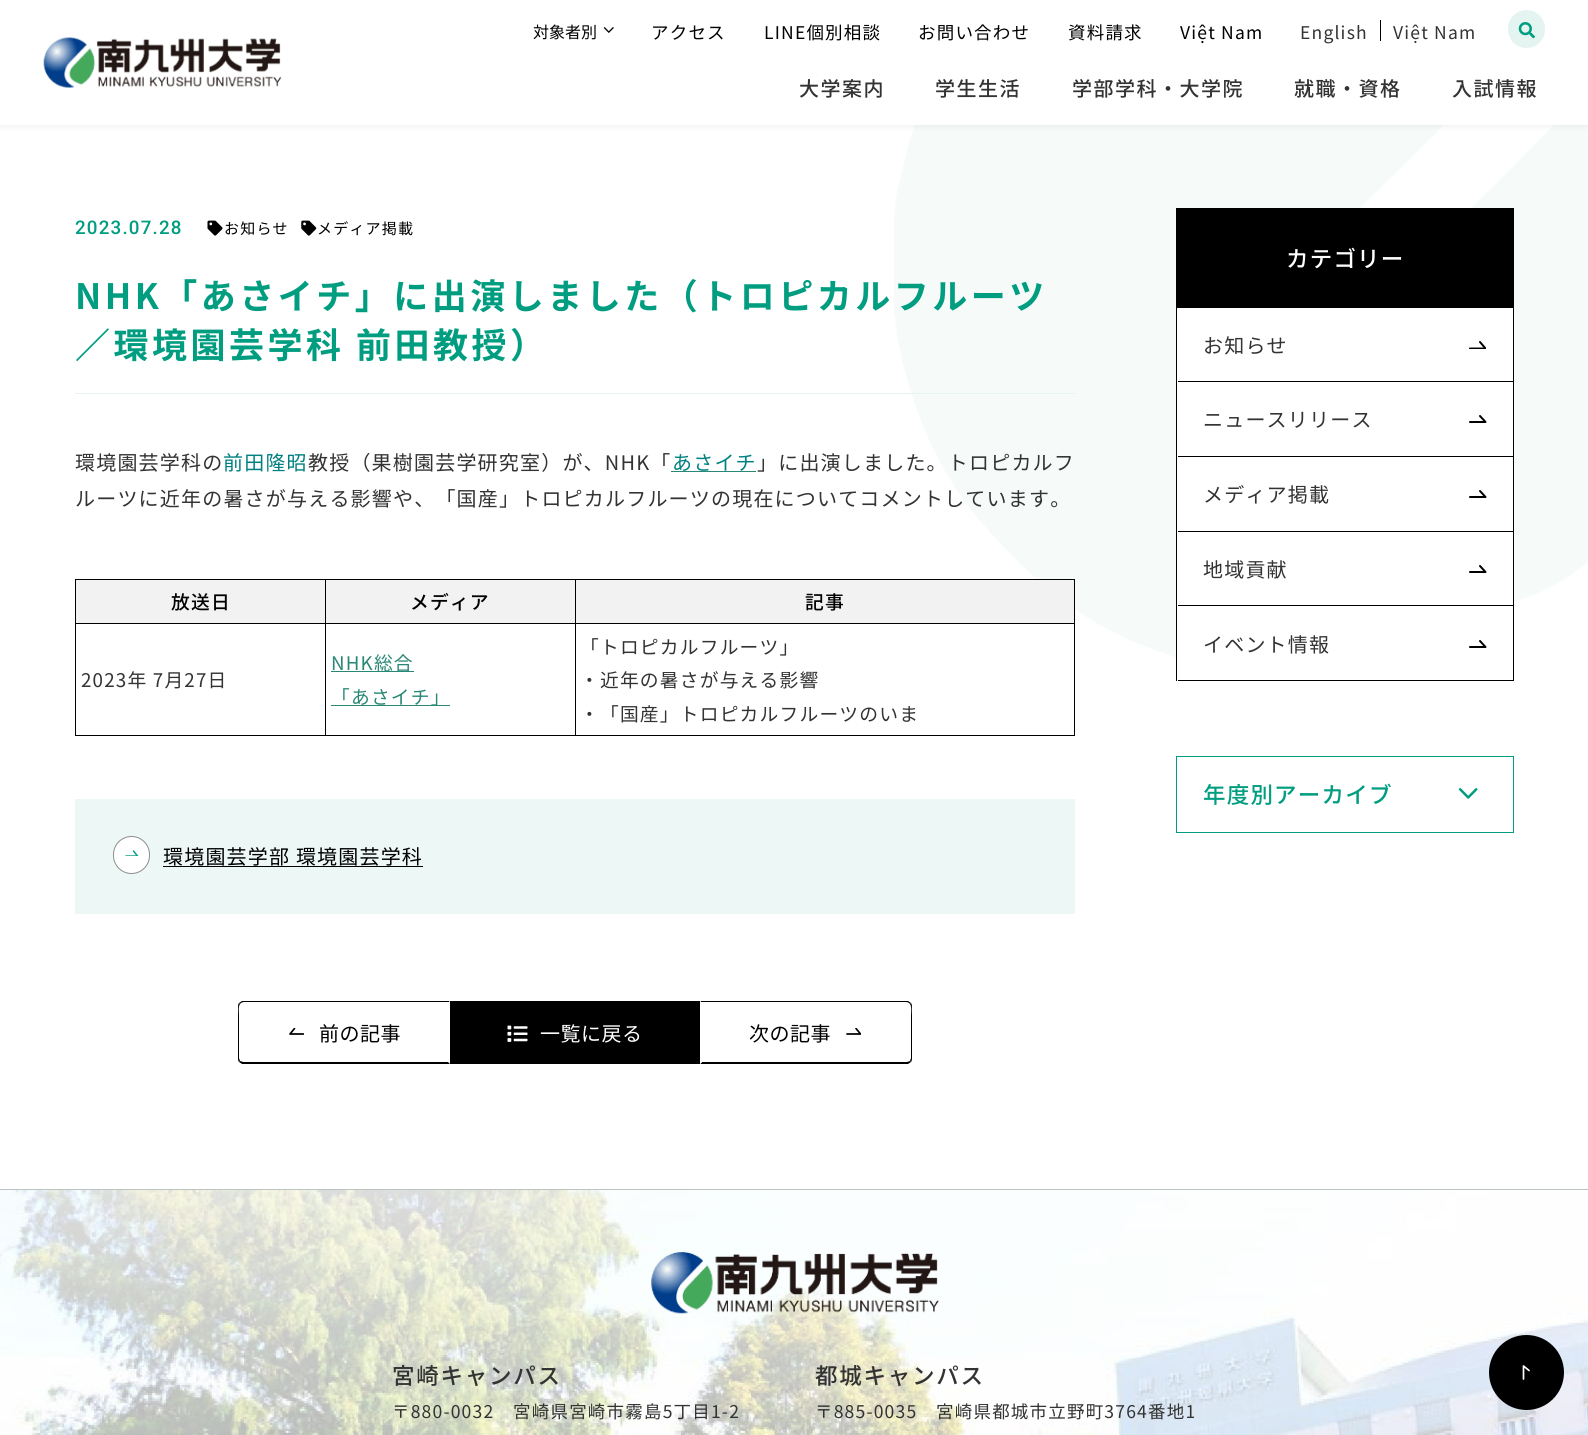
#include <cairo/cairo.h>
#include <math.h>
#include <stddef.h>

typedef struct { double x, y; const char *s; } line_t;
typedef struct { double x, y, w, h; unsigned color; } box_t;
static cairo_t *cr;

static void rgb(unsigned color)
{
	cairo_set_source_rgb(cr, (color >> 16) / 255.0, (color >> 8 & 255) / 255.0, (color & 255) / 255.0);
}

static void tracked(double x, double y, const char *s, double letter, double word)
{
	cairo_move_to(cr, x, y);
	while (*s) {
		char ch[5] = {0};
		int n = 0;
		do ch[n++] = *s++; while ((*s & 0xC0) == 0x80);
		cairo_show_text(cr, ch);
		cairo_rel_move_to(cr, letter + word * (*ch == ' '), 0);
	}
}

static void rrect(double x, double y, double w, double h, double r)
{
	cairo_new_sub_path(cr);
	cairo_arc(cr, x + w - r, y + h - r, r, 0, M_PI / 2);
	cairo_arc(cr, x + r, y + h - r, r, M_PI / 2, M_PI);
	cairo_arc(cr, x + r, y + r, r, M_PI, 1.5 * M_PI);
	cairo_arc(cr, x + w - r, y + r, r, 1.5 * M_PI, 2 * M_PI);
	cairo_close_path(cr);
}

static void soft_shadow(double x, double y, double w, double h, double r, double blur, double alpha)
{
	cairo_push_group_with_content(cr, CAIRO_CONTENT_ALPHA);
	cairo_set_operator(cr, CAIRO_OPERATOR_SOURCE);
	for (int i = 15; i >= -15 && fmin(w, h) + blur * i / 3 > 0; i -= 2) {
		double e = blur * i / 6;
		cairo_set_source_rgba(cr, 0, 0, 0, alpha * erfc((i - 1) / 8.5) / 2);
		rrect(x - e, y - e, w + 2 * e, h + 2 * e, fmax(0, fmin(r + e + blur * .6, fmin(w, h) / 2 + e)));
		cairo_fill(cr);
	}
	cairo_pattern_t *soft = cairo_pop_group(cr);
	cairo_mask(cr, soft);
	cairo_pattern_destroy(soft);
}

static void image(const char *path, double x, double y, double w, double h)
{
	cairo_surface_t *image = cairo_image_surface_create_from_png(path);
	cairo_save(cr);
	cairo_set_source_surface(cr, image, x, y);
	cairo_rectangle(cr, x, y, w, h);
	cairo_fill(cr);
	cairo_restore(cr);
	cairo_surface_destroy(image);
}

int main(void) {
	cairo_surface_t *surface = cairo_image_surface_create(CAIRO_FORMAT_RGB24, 1588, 1435);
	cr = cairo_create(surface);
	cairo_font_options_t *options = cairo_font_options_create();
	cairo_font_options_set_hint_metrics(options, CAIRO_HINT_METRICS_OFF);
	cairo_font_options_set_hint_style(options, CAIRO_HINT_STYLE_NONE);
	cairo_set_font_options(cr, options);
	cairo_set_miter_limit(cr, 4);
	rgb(0xffffff);
	cairo_paint(cr);
	image("img/4.png", 894, 125, 694, 533);
	rgb(0x000000);
	soft_shadow(0, 1, 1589, 125, 0, 4, 0.07);
	rgb(0xffffff);
	cairo_rectangle(cr, 0, 0, 1588, 125);
	cairo_fill(cr);
	rgb(0xe4f4f1);
	rrect(1508, 10, 37, 38, 18.5);
	cairo_fill(cr);
	image("img/1.png", 1518, 22, 17, 17);
	image("img/2.png", 43, 37, 239, 51);
	image("img/3.png", 603, 27, 11, 6);
	rgb(0x000000);
	cairo_rectangle(cr, 1380, 20, 1, 21);
	cairo_fill(cr);
	rgb(0xe4f4f1);
	cairo_rectangle(cr, 75, 393, 1000, 1);
	cairo_fill(cr);
	image("img/5.png", 207, 220, 16, 16);
	image("img/6.png", 301, 220, 16, 16);
	{
		static const box_t items[] = {
			{671, 471, 85, 1, 0x288775},
			{1074, 579, 1, 157, 0x000000},
			{75, 579, 1, 157, 0x000000},
			{76, 580, 249, 43, 0xf2f2f2},
			{575, 579, 500, 1, 0x000000},
			{575, 735, 500, 1, 0x000000},
			{575, 623, 1, 113, 0x000000},
			{575, 623, 500, 1, 0x000000},
			{575, 579, 1, 45, 0x000000},
			{325, 579, 251, 1, 0x000000},
			{325, 735, 251, 1, 0x000000},
			{325, 623, 1, 113, 0x000000},
			{325, 623, 251, 1, 0x000000},
			{325, 579, 1, 45, 0x000000},
			{75, 579, 251, 1, 0x000000},
			{75, 623, 251, 1, 0x000000},
			{326, 580, 249, 43, 0xf2f2f2},
			{576, 580, 498, 43, 0xf2f2f2},
			{75, 735, 251, 1, 0x000000},
			{331, 671, 83, 1, 0x288775},
			{331, 705, 119, 1, 0x288775},
			{75, 799, 1000, 115, 0xedf8f6},
		};
		for (size_t i = 0; i < sizeof items / sizeof *items; i++) {
			rgb(items[i].color);
			cairo_rectangle(cr, items[i].x, items[i].y, items[i].w, items[i].h);
			cairo_fill(cr);
		}
	}
	rgb(0xffffff);
	rrect(113.5, 836.5, 36, 37, 18);
	cairo_fill_preserve(cr);
	rgb(0x8d8d8d);
	cairo_set_line_width(cr, 1);
	cairo_stroke(cr);
	rgb(0x000000);
	cairo_rectangle(cr, 163, 866, 260, 1);
	cairo_fill(cr);
	cairo_save(cr);
	cairo_rectangle(cr, 125, 850, 14, 6);
	cairo_clip(cr);
	cairo_new_path(cr);
	cairo_move_to(cr, 133.5, 851);
	cairo_line_to(cr, 137.5, 856);
	cairo_line_to(cr, 126, 856);
	rgb(0x0ba185);
	cairo_set_line_width(cr, 1.5);
	cairo_set_line_cap(cr, CAIRO_LINE_CAP_ROUND);
	cairo_set_line_join(cr, CAIRO_LINE_JOIN_ROUND);
	cairo_stroke(cr);
	cairo_restore(cr);
	cairo_new_path(cr);
	cairo_move_to(cr, 244, 1002);
	cairo_curve_to(cr, 242, 1002, 241, 1003, 240, 1004);
	cairo_line_to(cr, 239, 1003);
	cairo_line_to(cr, 242, 1001);
	cairo_line_to(cr, 450, 1001);
	cairo_line_to(cr, 449, 1002);
	cairo_close_path(cr);
	cairo_fill(cr);
	rgb(0xffffff);
	cairo_new_path(cr);
	cairo_move_to(cr, 450, 1001);
	cairo_line_to(cr, 449, 1002);
	cairo_line_to(cr, 449, 1062);
	cairo_line_to(cr, 448, 1062);
	cairo_line_to(cr, 450, 1064);
	cairo_close_path(cr);
	cairo_fill(cr);
	rgb(0x000000);
	cairo_new_path(cr);
	cairo_move_to(cr, 450, 1064);
	cairo_line_to(cr, 242, 1064);
	cairo_line_to(cr, 239, 1062);
	cairo_line_to(cr, 240, 1061);
	cairo_line_to(cr, 243, 1062);
	cairo_line_to(cr, 448, 1062);
	cairo_close_path(cr);
	cairo_fill(cr);
	cairo_new_path(cr);
	cairo_move_to(cr, 239, 1062);
	cairo_curve_to(cr, 238, 1061, 238, 1059, 238, 1058);
	cairo_line_to(cr, 238, 1008);
	cairo_curve_to(cr, 238, 1006, 238, 1004, 239, 1003);
	cairo_line_to(cr, 240, 1004);
	cairo_curve_to(cr, 238, 1007, 239, 1013, 239, 1016);
	cairo_line_to(cr, 239, 1058);
	cairo_line_to(cr, 240, 1061);
	cairo_close_path(cr);
	cairo_fill(cr);
	cairo_save(cr);
	cairo_rectangle(cr, 289, 1028, 15, 7);
	cairo_clip(cr);
	cairo_new_path(cr);
	cairo_move_to(cr, 294.5, 1028.5);
	cairo_line_to(cr, 290, 1034);
	cairo_line_to(cr, 303.5, 1034);
	cairo_set_line_width(cr, 1.7);
	cairo_set_line_cap(cr, CAIRO_LINE_CAP_ROUND);
	cairo_set_line_join(cr, CAIRO_LINE_JOIN_ROUND);
	cairo_stroke(cr);
	cairo_restore(cr);
	cairo_rectangle(cr, 450, 1001, 250, 63);
	cairo_fill(cr);
	image("img/7.png", 507, 1025, 21, 17);
	cairo_new_path(cr);
	cairo_move_to(cr, 701, 1002);
	cairo_line_to(cr, 700, 1001);
	cairo_line_to(cr, 908, 1001);
	cairo_line_to(cr, 911, 1003);
	cairo_line_to(cr, 910, 1004);
	cairo_curve_to(cr, 909, 1003, 908, 1002, 906, 1002);
	cairo_close_path(cr);
	cairo_fill(cr);
	cairo_new_path(cr);
	cairo_move_to(cr, 911, 1003);
	cairo_curve_to(cr, 912, 1004, 912, 1006, 912, 1008);
	cairo_line_to(cr, 912, 1058);
	cairo_curve_to(cr, 912, 1059, 912, 1061, 911, 1062);
	cairo_line_to(cr, 910, 1061);
	cairo_line_to(cr, 911, 1058);
	cairo_line_to(cr, 911, 1016);
	cairo_curve_to(cr, 911, 1013, 912, 1007, 910, 1004);
	cairo_close_path(cr);
	cairo_fill(cr);
	cairo_new_path(cr);
	cairo_move_to(cr, 908, 1064);
	cairo_line_to(cr, 700, 1064);
	cairo_line_to(cr, 702, 1062);
	cairo_line_to(cr, 907, 1062);
	cairo_line_to(cr, 910, 1061);
	cairo_line_to(cr, 911, 1062);
	cairo_close_path(cr);
	cairo_fill(cr);
	rgb(0xffffff);
	cairo_new_path(cr);
	cairo_move_to(cr, 700, 1064);
	cairo_line_to(cr, 702, 1062);
	cairo_line_to(cr, 701, 1062);
	cairo_line_to(cr, 701, 1002);
	cairo_line_to(cr, 700, 1001);
	cairo_close_path(cr);
	cairo_fill(cr);
	cairo_save(cr);
	cairo_rectangle(cr, 846, 1028, 15, 7);
	cairo_clip(cr);
	cairo_new_path(cr);
	cairo_move_to(cr, 856, 1028.5);
	cairo_line_to(cr, 860.5, 1034);
	cairo_line_to(cr, 847, 1034);
	rgb(0x000000);
	cairo_set_line_width(cr, 1.7);
	cairo_set_line_cap(cr, CAIRO_LINE_CAP_ROUND);
	cairo_set_line_join(cr, CAIRO_LINE_JOIN_ROUND);
	cairo_stroke(cr);
	cairo_restore(cr);
	{
		static const box_t items[] = {
			{1176, 208, 338, 100, 0x000000},
			{1177, 308, 336, 350, 0xffffff},
			{1513, 308, 1, 373, 0x000000},
			{1176, 308, 1, 373, 0x000000},
			{1178, 381, 335, 1, 0x000000},
		};
		for (size_t i = 0; i < sizeof items / sizeof *items; i++) {
			rgb(items[i].color);
			cairo_rectangle(cr, items[i].x, items[i].y, items[i].w, items[i].h);
			cairo_fill(cr);
		}
	}
	cairo_save(cr);
	cairo_rectangle(cr, 1469, 341, 17, 8);
	cairo_clip(cr);
	cairo_new_path(cr);
	cairo_move_to(cr, 1480, 342);
	cairo_line_to(cr, 1485.5, 348.5);
	cairo_line_to(cr, 1470, 348.5);
	cairo_set_line_width(cr, 2);
	cairo_set_line_cap(cr, CAIRO_LINE_CAP_ROUND);
	cairo_set_line_join(cr, CAIRO_LINE_JOIN_ROUND);
	cairo_stroke(cr);
	cairo_restore(cr);
	cairo_rectangle(cr, 1178, 456, 335, 1);
	cairo_fill(cr);
	cairo_new_path(cr);
	cairo_move_to(cr, 1480, 416);
	cairo_line_to(cr, 1485.5, 422);
	cairo_line_to(cr, 1470, 422);
	cairo_set_line_width(cr, 2);
	cairo_set_line_cap(cr, CAIRO_LINE_CAP_ROUND);
	cairo_set_line_join(cr, CAIRO_LINE_JOIN_ROUND);
	cairo_stroke(cr);
	cairo_rectangle(cr, 1178, 531, 335, 1);
	cairo_fill(cr);
	cairo_new_path(cr);
	cairo_move_to(cr, 1480, 491);
	cairo_line_to(cr, 1485.5, 497);
	cairo_line_to(cr, 1470, 497);
	cairo_stroke(cr);
	cairo_rectangle(cr, 1178, 605, 335, 1);
	cairo_fill(cr);
	cairo_new_path(cr);
	cairo_move_to(cr, 1480, 566);
	cairo_line_to(cr, 1485.5, 572);
	cairo_line_to(cr, 1470, 572);
	cairo_stroke(cr);
	cairo_rectangle(cr, 1178, 680, 335, 1);
	cairo_fill(cr);
	cairo_new_path(cr);
	cairo_move_to(cr, 1480, 641);
	cairo_line_to(cr, 1485.5, 647);
	cairo_line_to(cr, 1470, 647);
	cairo_stroke(cr);
	cairo_rectangle(cr, 1176.5, 756.5, 337, 76);
	rgb(0x009d80);
	cairo_set_line_width(cr, 1);
	cairo_set_line_cap(cr, CAIRO_LINE_CAP_BUTT);
	cairo_set_line_join(cr, CAIRO_LINE_JOIN_MITER);
	cairo_stroke(cr);
	image("img/8.png", 1458, 787, 20, 12);
	image("img/9.png", 0, 1190, 1588, 245);
	rgb(0xbcc4c2);
	cairo_rectangle(cr, 0, 1189, 1588, 1);
	cairo_fill(cr);
	image("img/10.png", 651, 1252, 288, 62);
	rgb(0x000000);
	cairo_arc(cr, 1526.5, 1372.5, 37.5, 0, 2 * M_PI);
	cairo_fill(cr);
	cairo_save(cr);
	cairo_new_path(cr);
	cairo_move_to(cr, 1530, 1380);
	cairo_line_to(cr, 1530, 1365);
	cairo_line_to(cr, 1522.5, 1365);
	cairo_line_to(cr, 1522.5, 1380);
	cairo_close_path(cr);
	cairo_clip(cr);
	cairo_new_path(cr);
	cairo_move_to(cr, 1530, 1380);
	cairo_line_to(cr, 1530, 1365);
	cairo_line_to(cr, 1522.5, 1365);
	cairo_line_to(cr, 1522.5, 1380);
	cairo_close_path(cr);
	cairo_clip(cr);
	cairo_new_path(cr);
	cairo_move_to(cr, 1529, 1370.5);
	cairo_line_to(cr, 1523.5, 1366);
	cairo_line_to(cr, 1523.5, 1379);
	rgb(0xffffff);
	cairo_set_line_width(cr, 1.7);
	cairo_set_line_cap(cr, CAIRO_LINE_CAP_ROUND);
	cairo_set_line_join(cr, CAIRO_LINE_JOIN_ROUND);
	cairo_stroke(cr);
	cairo_restore(cr);
	cairo_select_font_face(cr, "Noto Sans JP", CAIRO_FONT_SLANT_NORMAL, CAIRO_FONT_WEIGHT_NORMAL);
	cairo_set_font_size(cr, 16);
	cairo_move_to(cr, 533, 38);
	cairo_show_text(cr, "対象者別");
	cairo_set_font_size(cr, 17.5);
	{
		static const line_t items[] = {
			{651, 39, "アクセス"},
			{764, 39, "LINE個別相談"},
			{918, 39, "お問い合わせ"},
			{1068, 39, "資料請求"},
			{1180, 39, "Việt Nam"},
		};
		for (size_t i = 0; i < sizeof items / sizeof *items; i++) {
			tracked(items[i].x, items[i].y, items[i].s, 1.2, 0);
		}
	}
	rgb(0x333333);
	tracked(1300, 39, "English", 1.2, 0);
	tracked(1393, 39, "Việt Nam", 1.2, 0);
	cairo_select_font_face(cr, "Noto Sans JP Medium", CAIRO_FONT_SLANT_NORMAL, CAIRO_FONT_WEIGHT_NORMAL);
	cairo_set_font_size(cr, 20);
	{
		static const line_t items[] = {
			{799, 96, "大学案内"},
			{935, 96, "学生生活"},
			{1072, 96, "学部学科・大学院"},
			{1294, 96, "就職・資格"},
			{1452, 96, "入試情報"},
		};
		for (size_t i = 0; i < sizeof items / sizeof *items; i++) {
			tracked(items[i].x, items[i].y, items[i].s, 1.5, 0);
		}
	}
	cairo_select_font_face(cr, "Roboto Medium", CAIRO_FONT_SLANT_NORMAL, CAIRO_FONT_WEIGHT_NORMAL);
	cairo_set_font_size(cr, 18.75);
	rgb(0x009d80);
	tracked(75, 234, "2023.07.28", 1.2, 0);
	cairo_select_font_face(cr, "Noto Sans JP", CAIRO_FONT_SLANT_NORMAL, CAIRO_FONT_WEIGHT_NORMAL);
	cairo_set_font_size(cr, 15);
	rgb(0x000000);
	tracked(224, 234, "お知らせ", 1.2, 0);
	tracked(317, 234, "メディア掲載", 1.2, 0);
	cairo_select_font_face(cr, "Noto Sans JP", CAIRO_FONT_SLANT_NORMAL, CAIRO_FONT_WEIGHT_BOLD);
	cairo_set_font_size(cr, 35);
	rgb(0x009d80);
	tracked(75, 309, "NHK「あさイチ」に出演しました（トロピカルフルーツ", 3.5, 0);
	tracked(75, 358, "／環境園芸学科 前田教授）", 3.5, 0);
	cairo_select_font_face(cr, "Noto Sans JP", CAIRO_FONT_SLANT_NORMAL, CAIRO_FONT_WEIGHT_NORMAL);
	cairo_set_font_size(cr, 20);
	rgb(0x333333);
	tracked(75, 470, "環境園芸学科の", 1.2, 0);
	rgb(0x008080);
	tracked(223, 470, "前田隆昭", 1.2, 0);
	rgb(0x333333);
	tracked(308, 470, "教授（果樹園芸学研究室）が、NHK「", 1.2, 0);
	rgb(0x008080);
	tracked(672, 470, "あさイチ", 1.2, 0);
	rgb(0x333333);
	tracked(757, 470, "」に出演しました。トロピカルフ", 1.2, 0);
	tracked(75, 506, "ルーツに近年の暑さが与える影響や、「国産」トロピカルフルーツの現在についてコメントしています。", 1.2, 0);
	cairo_select_font_face(cr, "Noto Sans JP Medium", CAIRO_FONT_SLANT_NORMAL, CAIRO_FONT_WEIGHT_NORMAL);
	cairo_set_font_size(cr, 18.75);
	rgb(0x000000);
	{
		static const line_t items[] = {
			{171, 609, "放送日"},
			{410, 609, "メディア"},
			{805, 609, "記事"},
		};
		for (size_t i = 0; i < sizeof items / sizeof *items; i++) {
			tracked(items[i].x, items[i].y, items[i].s, 1.2, 0);
		}
	}
	cairo_select_font_face(cr, "Noto Sans JP", CAIRO_FONT_SLANT_NORMAL, CAIRO_FONT_WEIGHT_NORMAL);
	rgb(0x333333);
	tracked(81, 687, "2023年 7月27日", 1.2, 0);
	rgb(0x288775);
	tracked(331, 670, "NHK総合", 1.2, 0);
	tracked(331, 704, "「あさイチ」", 1.2, 0);
	rgb(0x333333);
	{
		static const line_t items[] = {
			{580, 654, "「トロピカルフルーツ」"},
			{580, 687, "・近年の暑さが与える影響"},
			{580, 721, "・「国産」トロピカルフルーツのいま"},
		};
		for (size_t i = 0; i < sizeof items / sizeof *items; i++) {
			tracked(items[i].x, items[i].y, items[i].s, 1.2, 0);
		}
	}
	cairo_set_font_size(cr, 20);
	rgb(0x000000);
	tracked(163, 864, "環境園芸学部 環境園芸学科", 1.2, 0);
	tracked(319, 1041, "前の記事", 0.5, 0);
	rgb(0xffffff);
	tracked(540, 1041, "一覧に戻る", 0.5, 0);
	rgb(0x000000);
	tracked(749, 1041, "次の記事", 0.5, 0);
	cairo_select_font_face(cr, "Noto Sans JP Medium", CAIRO_FONT_SLANT_NORMAL, CAIRO_FONT_WEIGHT_NORMAL);
	cairo_set_font_size(cr, 22.5);
	rgb(0xffffff);
	tracked(1286, 267, "カテゴリー", 1.2, 0);
	cairo_select_font_face(cr, "Noto Sans JP", CAIRO_FONT_SLANT_NORMAL, CAIRO_FONT_WEIGHT_NORMAL);
	cairo_set_font_size(cr, 20);
	rgb(0x333333);
	{
		static const line_t items[] = {
			{1203, 353, "お知らせ"},
			{1203, 427, "ニュースリリース"},
			{1203, 502, "メディア掲載"},
			{1203, 577, "地域貢献"},
			{1203, 652, "イベント情報"},
		};
		for (size_t i = 0; i < sizeof items / sizeof *items; i++) {
			tracked(items[i].x, items[i].y, items[i].s, 1.2, 0);
		}
	}
	cairo_select_font_face(cr, "Noto Sans JP Medium", CAIRO_FONT_SLANT_NORMAL, CAIRO_FONT_WEIGHT_NORMAL);
	cairo_set_font_size(cr, 22.5);
	rgb(0x009d80);
	tracked(1203, 803, "年度別アーカイブ", 1.2, 0);
	rgb(0x333333);
	tracked(392, 1384, "宮崎キャンパス", 1.75, 0);
	cairo_select_font_face(cr, "Noto Sans JP", CAIRO_FONT_SLANT_NORMAL, CAIRO_FONT_WEIGHT_NORMAL);
	cairo_set_font_size(cr, 17.5);
	tracked(392, 1418, "〒880-0032　宮崎県宮崎市霧島5丁目1-2", 1.2, 0);
	cairo_select_font_face(cr, "Noto Sans JP Medium", CAIRO_FONT_SLANT_NORMAL, CAIRO_FONT_WEIGHT_NORMAL);
	cairo_set_font_size(cr, 22.5);
	tracked(815, 1384, "都城キャンパス", 1.75, 0);
	cairo_select_font_face(cr, "Noto Sans JP", CAIRO_FONT_SLANT_NORMAL, CAIRO_FONT_WEIGHT_NORMAL);
	cairo_set_font_size(cr, 17.5);
	tracked(815, 1418, "〒885-0035　宮崎県都城市立野町3764番地1", 1.2, 0);
	cairo_surface_write_to_png(surface, "page.png");
	cairo_font_options_destroy(options);
	cairo_destroy(cr);
	cairo_surface_destroy(surface);
	return 0;
}
